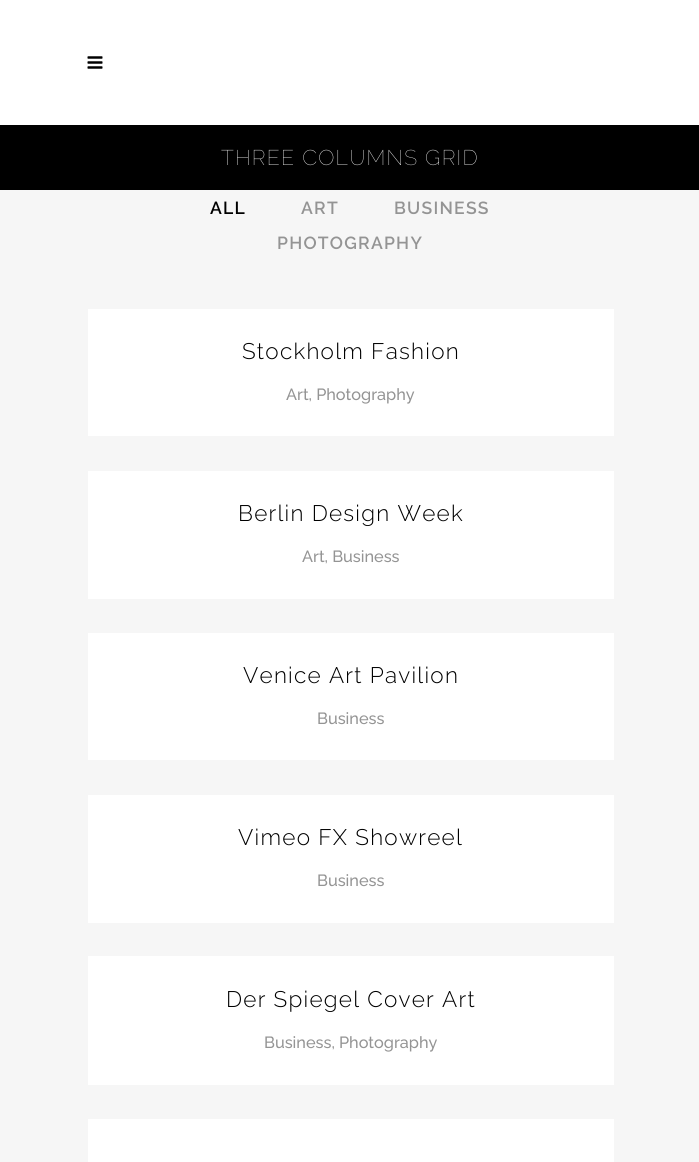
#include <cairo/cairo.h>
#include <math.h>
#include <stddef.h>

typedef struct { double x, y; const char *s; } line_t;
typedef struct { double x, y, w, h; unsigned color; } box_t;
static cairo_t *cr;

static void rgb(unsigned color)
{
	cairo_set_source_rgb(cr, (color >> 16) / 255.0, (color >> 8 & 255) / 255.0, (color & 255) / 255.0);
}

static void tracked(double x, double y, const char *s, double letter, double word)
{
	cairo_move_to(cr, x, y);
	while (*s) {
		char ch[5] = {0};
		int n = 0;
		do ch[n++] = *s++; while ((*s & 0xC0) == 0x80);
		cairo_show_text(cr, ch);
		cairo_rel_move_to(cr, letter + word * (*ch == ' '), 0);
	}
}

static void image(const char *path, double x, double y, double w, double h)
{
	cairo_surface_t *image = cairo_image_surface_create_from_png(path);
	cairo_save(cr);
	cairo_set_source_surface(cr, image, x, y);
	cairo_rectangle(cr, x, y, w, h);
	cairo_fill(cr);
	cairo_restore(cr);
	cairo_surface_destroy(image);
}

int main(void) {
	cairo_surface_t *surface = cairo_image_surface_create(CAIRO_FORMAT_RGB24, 699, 1162);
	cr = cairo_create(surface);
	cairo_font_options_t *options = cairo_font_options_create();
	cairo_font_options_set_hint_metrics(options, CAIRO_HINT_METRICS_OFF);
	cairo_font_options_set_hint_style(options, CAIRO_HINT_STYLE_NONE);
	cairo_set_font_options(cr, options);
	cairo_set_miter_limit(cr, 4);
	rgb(0xf6f6f6);
	cairo_paint(cr);
	rgb(0xffffff);
	cairo_rectangle(cr, 0, 0, 699, 125);
	cairo_fill(cr);
	image("img/1.png", 87, 56, 16, 13);
	{
		static const box_t items[] = {
			{0, 125, 699, 65, 0x000000},
			{88, 309, 526, 127, 0xffffff},
			{88, 471, 526, 128, 0xffffff},
			{88, 633, 526, 127, 0xffffff},
			{88, 795, 526, 128, 0xffffff},
			{88, 956, 526, 129, 0xffffff},
			{88, 1119, 526, 43, 0xffffff},
		};
		for (size_t i = 0; i < sizeof items / sizeof *items; i++) {
			rgb(items[i].color);
			cairo_rectangle(cr, items[i].x, items[i].y, items[i].w, items[i].h);
			cairo_fill(cr);
		}
	}
	cairo_select_font_face(cr, "Raleway Thin", CAIRO_FONT_SLANT_NORMAL, CAIRO_FONT_WEIGHT_NORMAL);
	cairo_set_font_size(cr, 21.25);
	tracked(221, 165, "THREE COLUMNS GRID", 1.25, 0);
	cairo_select_font_face(cr, "Raleway SemiBold", CAIRO_FONT_SLANT_NORMAL, CAIRO_FONT_WEIGHT_NORMAL);
	cairo_set_font_size(cr, 17.5);
	rgb(0x000000);
	tracked(210, 214, "ALL", 1.25, 0);
	rgb(0x949494);
	{
		static const line_t items[] = {
			{301, 214, "ART"},
			{394, 214, "BUSINESS"},
			{277, 249, "PHOTOGRAPHY"},
		};
		for (size_t i = 0; i < sizeof items / sizeof *items; i++) {
			tracked(items[i].x, items[i].y, items[i].s, 1.25, 0);
		}
	}
	cairo_select_font_face(cr, "Raleway Light", CAIRO_FONT_SLANT_NORMAL, CAIRO_FONT_WEIGHT_NORMAL);
	cairo_set_font_size(cr, 22.5);
	rgb(0x000000);
	tracked(242, 359, "Stockholm Fashion", 1.25, 0);
	cairo_select_font_face(cr, "Raleway Medium", CAIRO_FONT_SLANT_NORMAL, CAIRO_FONT_WEIGHT_NORMAL);
	cairo_set_font_size(cr, 16.25);
	rgb(0x949494);
	cairo_move_to(cr, 286, 400);
	cairo_show_text(cr, "Art, Photography");
	cairo_select_font_face(cr, "Raleway Light", CAIRO_FONT_SLANT_NORMAL, CAIRO_FONT_WEIGHT_NORMAL);
	cairo_set_font_size(cr, 22.5);
	rgb(0x000000);
	tracked(238, 521, "Berlin Design Week", 1.25, 0);
	cairo_select_font_face(cr, "Raleway Medium", CAIRO_FONT_SLANT_NORMAL, CAIRO_FONT_WEIGHT_NORMAL);
	cairo_set_font_size(cr, 16.25);
	rgb(0x949494);
	cairo_move_to(cr, 302, 562);
	cairo_show_text(cr, "Art, Business");
	cairo_select_font_face(cr, "Raleway Light", CAIRO_FONT_SLANT_NORMAL, CAIRO_FONT_WEIGHT_NORMAL);
	cairo_set_font_size(cr, 22.5);
	rgb(0x000000);
	tracked(243, 683, "Venice Art Pavilion", 1.25, 0);
	cairo_select_font_face(cr, "Raleway Medium", CAIRO_FONT_SLANT_NORMAL, CAIRO_FONT_WEIGHT_NORMAL);
	cairo_set_font_size(cr, 16.25);
	rgb(0x949494);
	cairo_move_to(cr, 317, 724);
	cairo_show_text(cr, "Business");
	cairo_select_font_face(cr, "Raleway Light", CAIRO_FONT_SLANT_NORMAL, CAIRO_FONT_WEIGHT_NORMAL);
	cairo_set_font_size(cr, 22.5);
	rgb(0x000000);
	tracked(238, 845, "Vimeo FX Showreel", 1.25, 0);
	cairo_select_font_face(cr, "Raleway Medium", CAIRO_FONT_SLANT_NORMAL, CAIRO_FONT_WEIGHT_NORMAL);
	cairo_set_font_size(cr, 16.25);
	rgb(0x949494);
	cairo_move_to(cr, 317, 886);
	cairo_show_text(cr, "Business");
	cairo_select_font_face(cr, "Raleway Light", CAIRO_FONT_SLANT_NORMAL, CAIRO_FONT_WEIGHT_NORMAL);
	cairo_set_font_size(cr, 22.5);
	rgb(0x000000);
	tracked(226, 1007, "Der Spiegel Cover Art", 1.25, 0);
	cairo_select_font_face(cr, "Raleway Medium", CAIRO_FONT_SLANT_NORMAL, CAIRO_FONT_WEIGHT_NORMAL);
	cairo_set_font_size(cr, 16.25);
	rgb(0x949494);
	cairo_move_to(cr, 264, 1048);
	cairo_show_text(cr, "Business, Photography");
	cairo_surface_write_to_png(surface, "page.png");
	cairo_font_options_destroy(options);
	cairo_destroy(cr);
	cairo_surface_destroy(surface);
	return 0;
}
